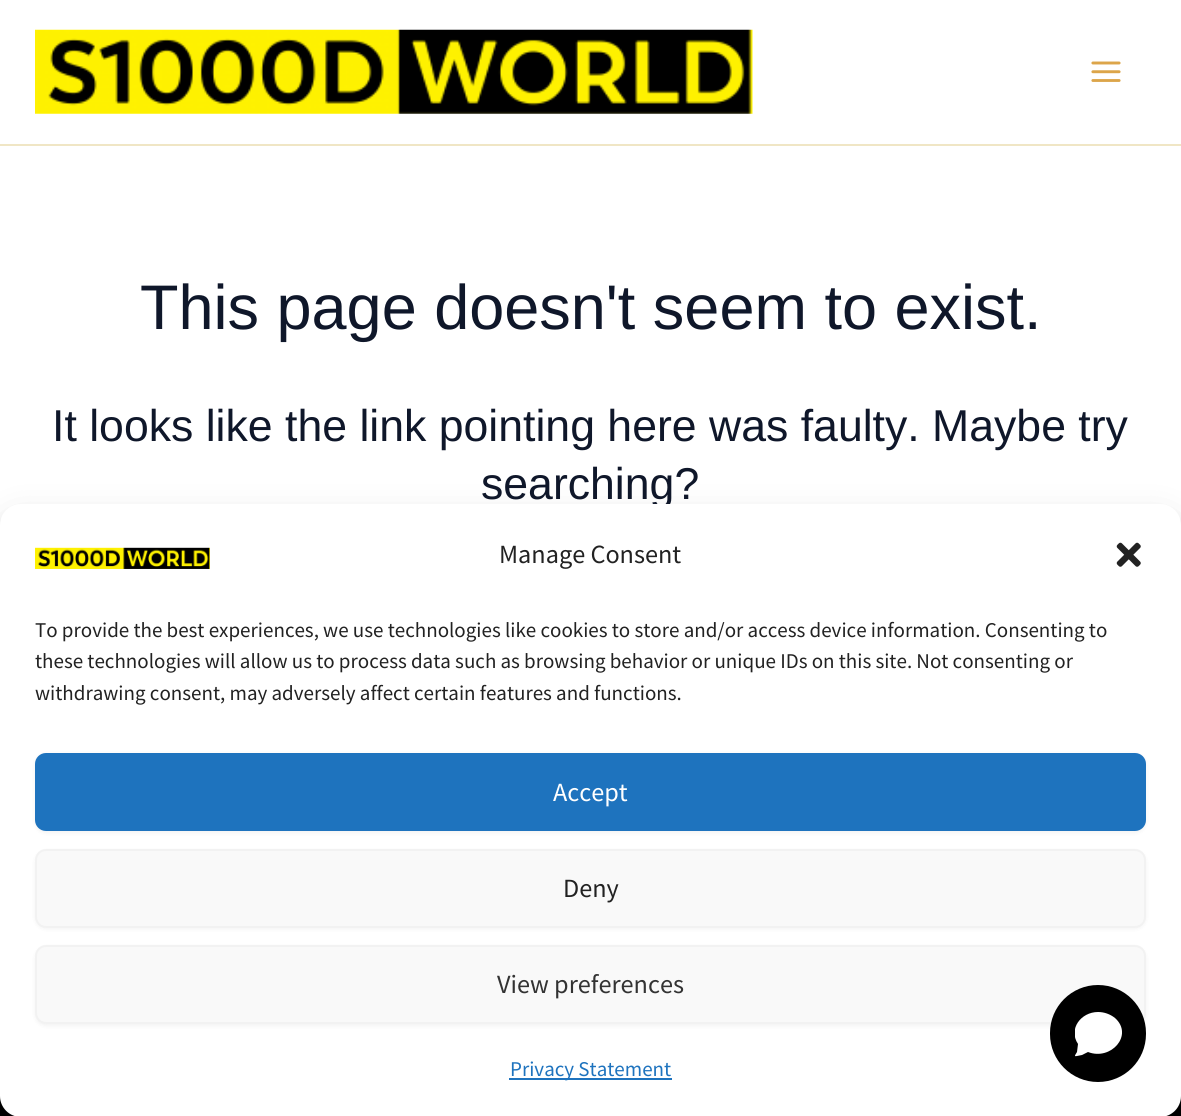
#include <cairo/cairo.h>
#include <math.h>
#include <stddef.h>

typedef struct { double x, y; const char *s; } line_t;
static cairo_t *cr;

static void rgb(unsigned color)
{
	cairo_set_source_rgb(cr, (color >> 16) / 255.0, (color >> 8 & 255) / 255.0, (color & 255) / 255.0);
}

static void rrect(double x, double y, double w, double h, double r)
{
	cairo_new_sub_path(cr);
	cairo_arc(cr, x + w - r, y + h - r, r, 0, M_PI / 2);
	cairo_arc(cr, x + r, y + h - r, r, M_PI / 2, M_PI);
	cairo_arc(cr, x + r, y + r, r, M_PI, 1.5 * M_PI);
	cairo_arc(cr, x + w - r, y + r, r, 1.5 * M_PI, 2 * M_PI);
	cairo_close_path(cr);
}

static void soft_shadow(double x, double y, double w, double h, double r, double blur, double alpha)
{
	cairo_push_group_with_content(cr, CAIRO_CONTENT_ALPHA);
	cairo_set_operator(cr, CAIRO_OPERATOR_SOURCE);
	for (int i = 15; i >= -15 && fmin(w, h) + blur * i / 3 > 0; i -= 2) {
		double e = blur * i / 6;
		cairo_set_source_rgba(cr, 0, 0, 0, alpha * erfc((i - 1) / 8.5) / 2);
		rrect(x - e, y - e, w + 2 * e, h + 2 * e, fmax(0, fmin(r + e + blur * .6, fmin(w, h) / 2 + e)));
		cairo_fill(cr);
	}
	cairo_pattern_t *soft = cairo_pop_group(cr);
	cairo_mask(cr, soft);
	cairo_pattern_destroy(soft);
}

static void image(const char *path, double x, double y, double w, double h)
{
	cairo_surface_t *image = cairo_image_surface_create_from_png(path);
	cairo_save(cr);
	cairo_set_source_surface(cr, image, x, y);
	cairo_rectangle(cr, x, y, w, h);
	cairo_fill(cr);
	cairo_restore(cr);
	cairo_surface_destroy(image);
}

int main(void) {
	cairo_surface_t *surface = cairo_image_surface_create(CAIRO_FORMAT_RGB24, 1181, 1116);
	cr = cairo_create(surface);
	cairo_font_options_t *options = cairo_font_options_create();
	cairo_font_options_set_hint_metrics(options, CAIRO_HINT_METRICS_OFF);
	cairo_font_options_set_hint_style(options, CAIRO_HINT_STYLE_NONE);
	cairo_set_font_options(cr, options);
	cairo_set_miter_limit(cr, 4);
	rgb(0xffffff);
	cairo_paint(cr);
	rgb(0xf0e6c5);
	cairo_rectangle(cr, 0, 144, 1181, 2);
	cairo_fill(cr);
	image("img/1.png", 35, 29, 718, 85);
	image("img/2.png", 1091, 61, 30, 21);
	rgb(0x000000);
	cairo_rectangle(cr, 0, 1096, 1181, 20);
	cairo_fill(cr);
	rgb(0x000000);
	soft_shadow(0, 515, 1181, 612, 21, 5, 0.23);
	soft_shadow(0, 522, 1181, 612, 21, 17.5, 0.19);
	cairo_select_font_face(cr, "Liberation Sans", CAIRO_FONT_SLANT_NORMAL, CAIRO_FONT_WEIGHT_NORMAL);
	cairo_set_font_size(cr, 63);
	rgb(0x0f172a);
	cairo_move_to(cr, 140, 329);
	cairo_show_text(cr, "This page doesn't seem to exist.");
	cairo_set_font_size(cr, 44.6);
	cairo_move_to(cr, 52, 441);
	cairo_show_text(cr, "It looks like the link pointing here was faulty. Maybe try");
	cairo_move_to(cr, 481, 499);
	cairo_show_text(cr, "searching?");
	rgb(0xffffff);
	rrect(0, 504, 1181, 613, 21);
	cairo_fill(cr);
	image("img/3.png", 35, 547, 175, 22);
	cairo_select_font_face(cr, "Source Sans Pro", CAIRO_FONT_SLANT_NORMAL, CAIRO_FONT_WEIGHT_NORMAL);
	cairo_set_font_size(cr, 26.25);
	rgb(0x222222);
	cairo_move_to(cr, 499, 563);
	cairo_show_text(cr, "Manage Consent");
	image("img/4.png", 1116, 542, 25, 25);
	cairo_set_font_size(cr, 21);
	{
		static const line_t items[] = {
			{35, 637, "To provide the best experiences, we use technologies like cookies to store and/or access device information. Consenting to"},
			{35, 668, "these technologies will allow us to process data such as browsing behavior or unique IDs on this site. Not consenting or"},
			{35, 700, "withdrawing consent, may adversely affect certain features and functions."},
		};
		for (size_t i = 0; i < sizeof items / sizeof *items; i++) {
			cairo_move_to(cr, items[i].x, items[i].y);
			cairo_show_text(cr, items[i].s);
		}
	}
	rgb(0x000000);
	soft_shadow(35, 754, 1111, 79, 11, 2, 0.05);
	rgb(0x1e73be);
	rrect(36, 754, 1109, 76, 10);
	cairo_fill_preserve(cr);
	cairo_stroke(cr);
	cairo_set_font_size(cr, 26.25);
	rgb(0xffffff);
	cairo_move_to(cr, 553, 801);
	cairo_show_text(cr, "Accept");
	rgb(0x000000);
	soft_shadow(35, 851, 1111, 78, 11, 2, 0.05);
	rgb(0xf9f9f9);
	rrect(36, 850, 1109, 77, 10);
	cairo_fill_preserve(cr);
	rgb(0xf2f2f2);
	cairo_stroke(cr);
	rgb(0x222222);
	cairo_move_to(cr, 563, 897);
	cairo_show_text(cr, "Deny");
	rgb(0x000000);
	soft_shadow(35, 947, 1111, 79, 11, 2, 0.05);
	rgb(0xf9f9f9);
	rrect(36, 946, 1109, 77, 10);
	cairo_fill_preserve(cr);
	rgb(0xf2f2f2);
	cairo_stroke(cr);
	rgb(0x333333);
	cairo_move_to(cr, 497, 993);
	cairo_show_text(cr, "View preferences");
	rgb(0x1e73be);
	cairo_rectangle(cr, 509, 1078, 163, 2);
	cairo_fill(cr);
	cairo_set_font_size(cr, 21);
	cairo_move_to(cr, 510, 1076);
	cairo_show_text(cr, "Privacy Statement");
	rgb(0x000000);
	rrect(1050, 985, 96, 97, 48);
	cairo_fill(cr);
	cairo_save(cr);
	cairo_rectangle(cr, 1075, 1010, 47, 47);
	cairo_clip(cr);
	rgb(0xffffff);
	cairo_new_path(cr);
	cairo_move_to(cr, 1098, 1012);
	cairo_curve_to(cr, 1081, 1012, 1068, 1029, 1078, 1044);
	cairo_line_to(cr, 1077, 1052);
	cairo_curve_to(cr, 1076, 1054, 1073, 1057, 1077, 1056);
	cairo_line_to(cr, 1082, 1055);
	cairo_line_to(cr, 1088, 1052);
	cairo_curve_to(cr, 1111, 1061, 1134, 1035, 1115, 1018);
	cairo_curve_to(cr, 1110, 1014, 1104, 1012, 1098, 1012);
	cairo_close_path(cr);
	cairo_fill(cr);
	cairo_restore(cr);
	cairo_surface_write_to_png(surface, "page.png");
	cairo_font_options_destroy(options);
	cairo_destroy(cr);
	cairo_surface_destroy(surface);
	return 0;
}
